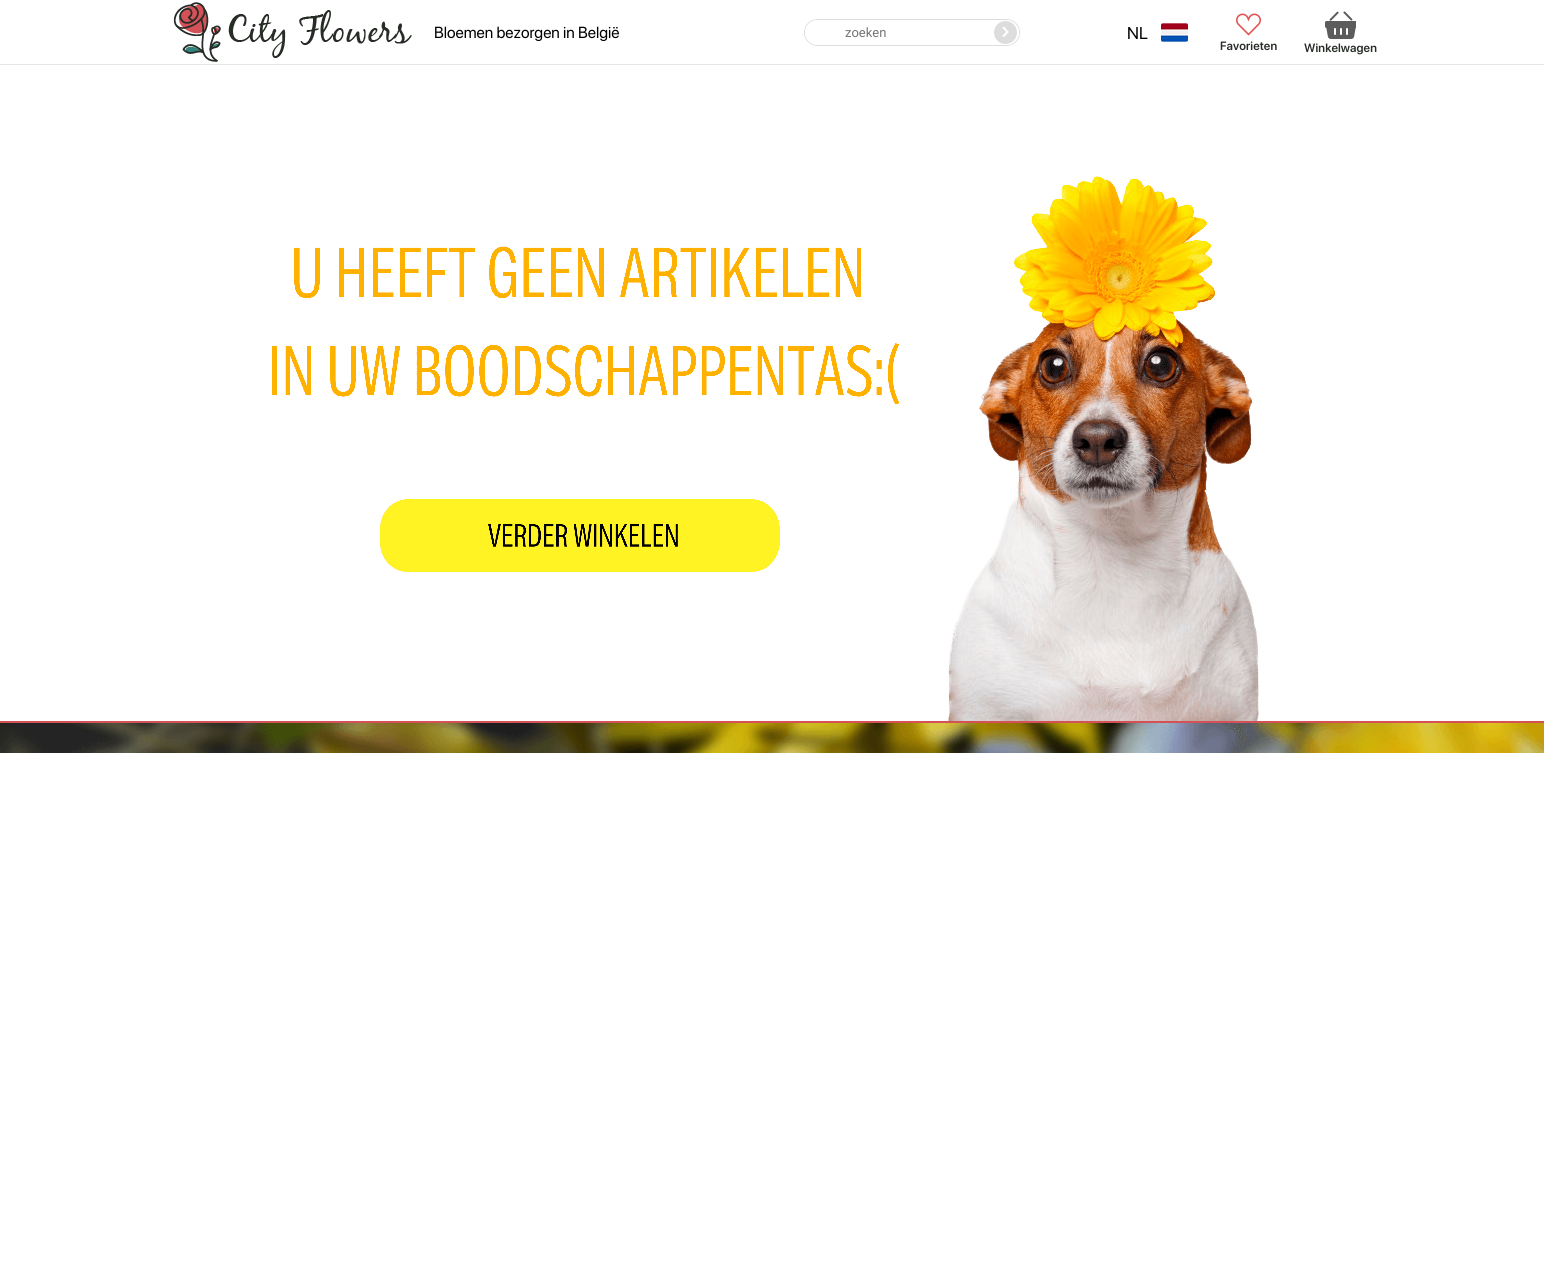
#include <cairo/cairo.h>
#include <math.h>
#include <stddef.h>

static cairo_t *cr;

static void rgb(unsigned color)
{
	cairo_set_source_rgb(cr, (color >> 16) / 255.0, (color >> 8 & 255) / 255.0, (color & 255) / 255.0);
}

static void tracked(double x, double y, const char *s, double letter, double word)
{
	cairo_move_to(cr, x, y);
	while (*s) {
		char ch[5] = {0};
		int n = 0;
		do ch[n++] = *s++; while ((*s & 0xC0) == 0x80);
		cairo_show_text(cr, ch);
		cairo_rel_move_to(cr, letter + word * (*ch == ' '), 0);
	}
}

static void rrect(double x, double y, double w, double h, double r)
{
	cairo_new_sub_path(cr);
	cairo_arc(cr, x + w - r, y + h - r, r, 0, M_PI / 2);
	cairo_arc(cr, x + r, y + h - r, r, M_PI / 2, M_PI);
	cairo_arc(cr, x + r, y + r, r, M_PI, 1.5 * M_PI);
	cairo_arc(cr, x + w - r, y + r, r, 1.5 * M_PI, 2 * M_PI);
	cairo_close_path(cr);
}

static void image(const char *path, double x, double y, double w, double h)
{
	cairo_surface_t *image = cairo_image_surface_create_from_png(path);
	cairo_save(cr);
	cairo_set_source_surface(cr, image, x, y);
	cairo_rectangle(cr, x, y, w, h);
	cairo_fill(cr);
	cairo_restore(cr);
	cairo_surface_destroy(image);
}

int main(void) {
	cairo_surface_t *surface = cairo_image_surface_create(CAIRO_FORMAT_RGB24, 1544, 1275);
	cr = cairo_create(surface);
	cairo_font_options_t *options = cairo_font_options_create();
	cairo_font_options_set_hint_metrics(options, CAIRO_HINT_METRICS_OFF);
	cairo_font_options_set_hint_style(options, CAIRO_HINT_STYLE_NONE);
	cairo_set_font_options(cr, options);
	cairo_set_miter_limit(cr, 4);
	rgb(0xffffff);
	cairo_paint(cr);
	rgb(0xe5e5e5);
	cairo_rectangle(cr, 0, 64, 1544, 1);
	cairo_fill(cr);
	image("img/1.png", 173, 2, 239, 60);
	rrect(804.5, 19.5, 215, 26, 13);
	rgb(0xdddddd);
	cairo_set_line_width(cr, 1);
	cairo_stroke(cr);
	rgb(0xffffff);
	rrect(805, 20, 214, 25, 12.5);
	cairo_fill(cr);
	rgb(0xdddddd);
	cairo_arc(cr, 1005.5, 32.5, 11.5, 0, 2 * M_PI);
	cairo_fill(cr);
	cairo_new_path(cr);
	cairo_move_to(cr, 1003, 27);
	cairo_line_to(cr, 1007.5, 32);
	cairo_line_to(cr, 1003, 36.5);
	rgb(0xffffff);
	cairo_set_line_width(cr, 2);
	cairo_stroke(cr);
	image("img/2.png", 1161, 23, 27, 19);
	image("img/3.png", 1236, 13, 25, 23);
	image("img/4.png", 1325, 11, 31, 28);
	image("img/5.png", 272, 176, 987, 545);
	image("img/6.png", 0, 723, 1544, 30);
	rgb(0xd35157);
	cairo_rectangle(cr, 0, 721, 1544, 2);
	cairo_fill(cr);
	cairo_select_font_face(cr, "SF Pro Display", CAIRO_FONT_SLANT_NORMAL, CAIRO_FONT_WEIGHT_NORMAL);
	cairo_set_font_size(cr, 16);
	rgb(0x000000);
	cairo_move_to(cr, 434, 38);
	cairo_show_text(cr, "Bloemen bezorgen in België");
	cairo_select_font_face(cr, "Roboto", CAIRO_FONT_SLANT_NORMAL, CAIRO_FONT_WEIGHT_NORMAL);
	cairo_set_font_size(cr, 13);
	rgb(0x757575);
	cairo_move_to(cr, 845, 37);
	cairo_show_text(cr, "zoeken");
	cairo_select_font_face(cr, "SF Pro Display", CAIRO_FONT_SLANT_NORMAL, CAIRO_FONT_WEIGHT_NORMAL);
	cairo_set_font_size(cr, 17);
	rgb(0x000000);
	cairo_move_to(cr, 1127, 39);
	cairo_show_text(cr, "NL");
	cairo_select_font_face(cr, "SF Pro Display SemiBold", CAIRO_FONT_SLANT_NORMAL, CAIRO_FONT_WEIGHT_NORMAL);
	cairo_set_font_size(cr, 12);
	rgb(0x272c26);
	tracked(1220, 50, "Favorieten", 0.1, 0);
	tracked(1304, 52, "Winkelwagen", 0.1, 0);
	cairo_surface_write_to_png(surface, "page.png");
	cairo_font_options_destroy(options);
	cairo_destroy(cr);
	cairo_surface_destroy(surface);
	return 0;
}
